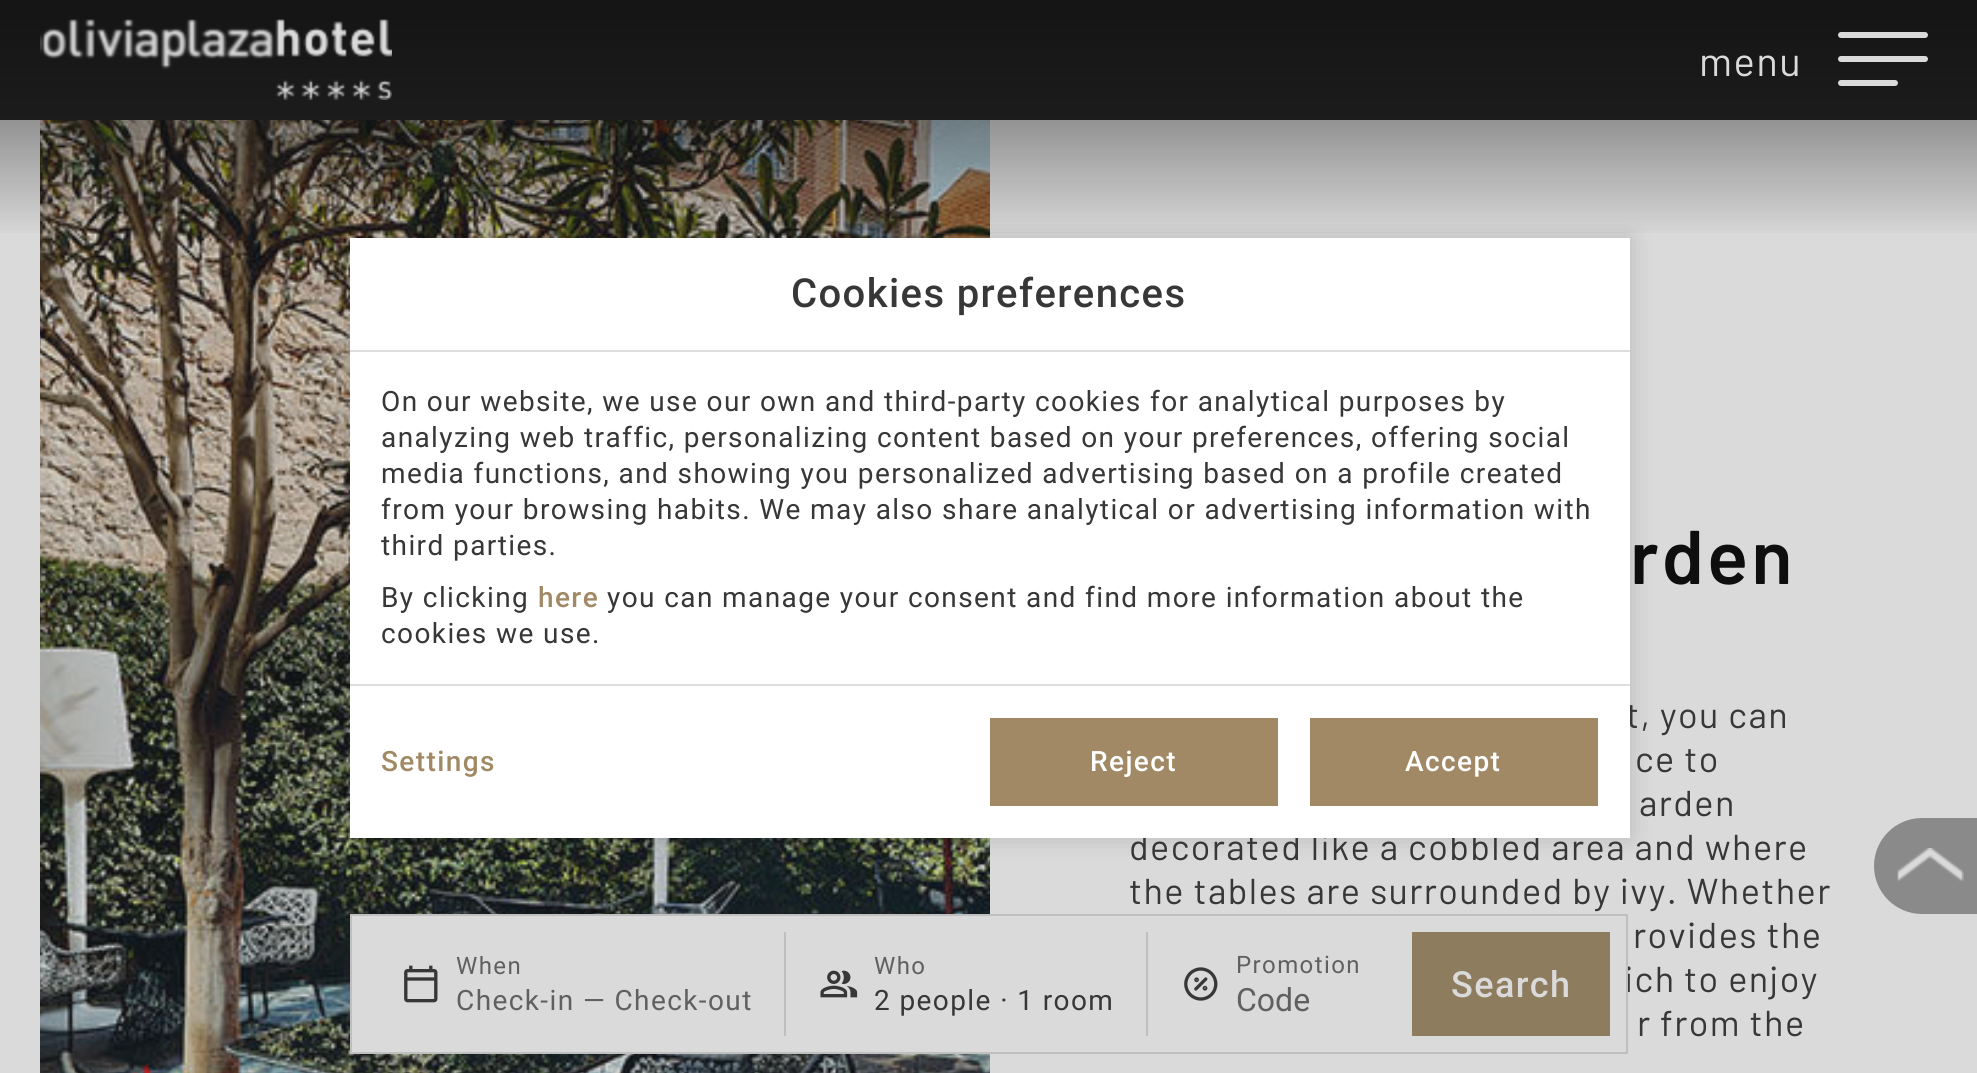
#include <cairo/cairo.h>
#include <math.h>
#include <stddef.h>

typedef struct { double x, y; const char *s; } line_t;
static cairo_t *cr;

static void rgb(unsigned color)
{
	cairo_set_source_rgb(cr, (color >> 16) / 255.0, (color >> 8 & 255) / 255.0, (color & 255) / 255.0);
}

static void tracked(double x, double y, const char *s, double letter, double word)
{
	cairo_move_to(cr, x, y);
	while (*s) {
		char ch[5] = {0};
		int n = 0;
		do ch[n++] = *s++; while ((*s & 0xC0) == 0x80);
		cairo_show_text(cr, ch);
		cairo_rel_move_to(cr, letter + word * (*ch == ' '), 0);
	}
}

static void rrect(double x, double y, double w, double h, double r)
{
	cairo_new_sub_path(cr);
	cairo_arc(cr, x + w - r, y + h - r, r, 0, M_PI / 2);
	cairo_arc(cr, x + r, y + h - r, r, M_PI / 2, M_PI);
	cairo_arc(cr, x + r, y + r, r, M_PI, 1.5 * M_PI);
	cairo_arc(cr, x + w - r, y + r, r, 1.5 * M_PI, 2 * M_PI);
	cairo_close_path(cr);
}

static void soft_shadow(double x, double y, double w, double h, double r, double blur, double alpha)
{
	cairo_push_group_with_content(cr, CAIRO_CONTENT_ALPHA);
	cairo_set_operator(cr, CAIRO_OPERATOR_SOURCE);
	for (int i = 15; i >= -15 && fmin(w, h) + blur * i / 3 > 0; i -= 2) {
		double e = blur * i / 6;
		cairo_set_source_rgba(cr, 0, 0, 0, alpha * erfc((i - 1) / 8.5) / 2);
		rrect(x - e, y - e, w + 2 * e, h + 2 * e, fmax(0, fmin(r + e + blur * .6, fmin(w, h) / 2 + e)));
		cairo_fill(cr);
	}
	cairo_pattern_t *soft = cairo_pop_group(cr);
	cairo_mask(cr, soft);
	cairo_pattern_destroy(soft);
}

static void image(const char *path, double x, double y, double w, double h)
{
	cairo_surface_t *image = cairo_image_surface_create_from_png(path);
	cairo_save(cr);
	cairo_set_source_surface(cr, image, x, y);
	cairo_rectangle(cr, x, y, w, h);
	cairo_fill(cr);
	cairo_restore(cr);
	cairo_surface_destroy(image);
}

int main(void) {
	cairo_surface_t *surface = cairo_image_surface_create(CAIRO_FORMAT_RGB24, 1977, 1073);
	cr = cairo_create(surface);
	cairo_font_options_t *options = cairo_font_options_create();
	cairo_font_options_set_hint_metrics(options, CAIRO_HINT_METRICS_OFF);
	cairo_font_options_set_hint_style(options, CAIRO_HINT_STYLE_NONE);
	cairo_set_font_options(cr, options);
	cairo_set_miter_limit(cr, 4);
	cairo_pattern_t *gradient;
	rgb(0xdadada);
	cairo_paint(cr);
	rgb(0x232323);
	cairo_rectangle(cr, 0, 0, 1977, 120);
	cairo_fill(cr);
	image("img/5.png", 40, 120, 950, 953);
	gradient = cairo_pattern_create_linear(989, 0, 989, 240);
	cairo_pattern_add_color_stop_rgba(gradient, 0, 0.055, 0.055, 0.055, 0.7);
	cairo_pattern_add_color_stop_rgba(gradient, 1, 0.055, 0.055, 0.055, 0);
	cairo_set_source(cr, gradient);
	cairo_pattern_destroy(gradient);
	cairo_rectangle(cr, 0, 0, 1977, 233);
	cairo_fill(cr);
	image("img/1.png", 40, 19, 352, 81);
	rgb(0xdadada);
	rrect(1838, 56, 90, 6, 3);
	cairo_fill(cr);
	rrect(1838, 32, 90, 6, 3);
	cairo_fill(cr);
	rrect(1838, 80, 60, 6, 3);
	cairo_fill(cr);
	cairo_rectangle(cr, 352, 916, 638, 136);
	cairo_fill(cr);
	rgb(0x000000);
	soft_shadow(350, 238, 1280, 600, 0, 12, 0.15);
	rgb(0x8a8a8a);
	cairo_new_path(cr);
	cairo_move_to(cr, 1922, 818);
	cairo_line_to(cr, 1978, 818);
	cairo_line_to(cr, 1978, 914);
	cairo_line_to(cr, 1922, 914);
	cairo_curve_to(cr, 1895.5, 914, 1874, 892.5, 1874, 866);
	cairo_curve_to(cr, 1874, 839.5, 1895.5, 818, 1922, 818);
	cairo_close_path(cr);
	cairo_fill(cr);
	image("img/6.png", 1897, 848, 67, 34);
	cairo_select_font_face(cr, "Barlow", CAIRO_FONT_SLANT_NORMAL, CAIRO_FONT_WEIGHT_NORMAL);
	cairo_set_font_size(cr, 40);
	rgb(0xdadada);
	tracked(1699, 76, "menu", 1.4, 0);
	cairo_select_font_face(cr, "Barlow SemiBold", CAIRO_FONT_SLANT_NORMAL, CAIRO_FONT_WEIGHT_NORMAL);
	cairo_set_font_size(cr, 76);
	rgb(0x0e0e0e);
	tracked(1630, 584, "rden", 3, 0);
	cairo_select_font_face(cr, "Barlow", CAIRO_FONT_SLANT_NORMAL, CAIRO_FONT_WEIGHT_NORMAL);
	cairo_set_font_size(cr, 36);
	rgb(0x373737);
	{
		static const line_t items[] = {
			{1626, 728, "t, you can"},
			{1635, 772, "ce to"},
			{1639, 816, "arden"},
			{1129, 860, "decorated like a cobbled area and where"},
		};
		for (size_t i = 0; i < sizeof items / sizeof *items; i++) {
			tracked(items[i].x, items[i].y, items[i].s, 1.4, 0);
		}
	}
	rgb(0xffffff);
	cairo_rectangle(cr, 350, 238, 1280, 600);
	cairo_fill(cr);
	rgb(0xa08964);
	cairo_rectangle(cr, 1310, 718, 288, 88);
	cairo_fill(cr);
	cairo_select_font_face(cr, "Roboto Medium", CAIRO_FONT_SLANT_NORMAL, CAIRO_FONT_WEIGHT_NORMAL);
	cairo_set_font_size(cr, 28);
	rgb(0xffffff);
	tracked(1405, 771, "Accept", 1.4, 0);
	rgb(0xa08964);
	cairo_rectangle(cr, 990, 718, 288, 88);
	cairo_fill(cr);
	rgb(0xffffff);
	tracked(1090, 771, "Reject", 1.4, 0);
	rgb(0xa08964);
	tracked(381, 771, "Settings", 1.4, 0);
	tracked(538, 607, "here", 1.4, 0);
	cairo_select_font_face(cr, "Roboto", CAIRO_FONT_SLANT_NORMAL, CAIRO_FONT_WEIGHT_NORMAL);
	rgb(0x373737);
	{
		static const line_t items[] = {
			{381, 643, "cookies we use."},
			{607, 607, "you can manage your consent and find more information about the"},
			{381, 607, "By clicking"},
			{381, 555, "third parties."},
			{381, 519, "from your browsing habits. We may also share analytical or advertising information with"},
			{381, 483, "media functions, and showing you personalized advertising based on a profile created"},
			{381, 447, "analyzing web traffic, personalizing content based on your preferences, offering social"},
			{381, 411, "On our website, we use our own and third-party cookies for analytical purposes by"},
		};
		for (size_t i = 0; i < sizeof items / sizeof *items; i++) {
			tracked(items[i].x, items[i].y, items[i].s, 1.4, 0);
		}
	}
	rgb(0xdddddd);
	cairo_rectangle(cr, 350, 684, 1280, 2);
	cairo_fill(cr);
	cairo_select_font_face(cr, "Roboto Medium", CAIRO_FONT_SLANT_NORMAL, CAIRO_FONT_WEIGHT_NORMAL);
	cairo_set_font_size(cr, 40);
	rgb(0x373737);
	tracked(791, 307, "Cookies preferences", 1.4, 0);
	rgb(0xdddddd);
	cairo_rectangle(cr, 350, 350, 1280, 2);
	cairo_fill(cr);
	cairo_select_font_face(cr, "Barlow", CAIRO_FONT_SLANT_NORMAL, CAIRO_FONT_WEIGHT_NORMAL);
	cairo_set_font_size(cr, 36);
	rgb(0x373737);
	{
		static const line_t items[] = {
			{1129, 904, "the tables are surrounded by ivy. Whether"},
			{1633, 948, "rovides the"},
			{1624, 992, "ich to enjoy"},
		};
		for (size_t i = 0; i < sizeof items / sizeof *items; i++) {
			tracked(items[i].x, items[i].y, items[i].s, 1.4, 0);
		}
	}
	cairo_rectangle(cr, 351, 915, 1276, 138);
	rgb(0xbfbfbf);
	cairo_stroke(cr);
	rgb(0x8e7c5e);
	cairo_rectangle(cr, 1412, 932, 198, 104);
	cairo_fill(cr);
	cairo_select_font_face(cr, "Roboto Medium", CAIRO_FONT_SLANT_NORMAL, CAIRO_FONT_WEIGHT_NORMAL);
	rgb(0xdadada);
	tracked(1451, 997, "Search", 1.4, 0);
	image("img/4.png", 1184, 967, 34, 34);
	cairo_select_font_face(cr, "Roboto", CAIRO_FONT_SLANT_NORMAL, CAIRO_FONT_WEIGHT_NORMAL);
	cairo_set_font_size(cr, 28);
	rgb(0x373737);
	tracked(874, 1010, "2 people · 1 room", 1.4, 0);
	image("img/3.png", 820, 970, 38, 28);
	rgb(0x606060);
	tracked(456, 1010, "Check-in — Check-out", 1.4, 0);
	image("img/2.png", 404, 965, 34, 38);
	cairo_set_font_size(cr, 32);
	cairo_move_to(cr, 1236, 1011);
	cairo_show_text(cr, "Code");
	cairo_set_font_size(cr, 24);
	tracked(1236, 973, "Promotion", 1.4, 0);
	rgb(0xbfbfbf);
	cairo_rectangle(cr, 1146, 932, 2, 104);
	cairo_fill(cr);
	rgb(0x606060);
	tracked(874, 974, "Who", 1.4, 0);
	rgb(0xbfbfbf);
	cairo_rectangle(cr, 784, 932, 2, 104);
	cairo_fill(cr);
	rgb(0x606060);
	tracked(456, 974, "When", 1.4, 0);
	cairo_select_font_face(cr, "Barlow", CAIRO_FONT_SLANT_NORMAL, CAIRO_FONT_WEIGHT_NORMAL);
	cairo_set_font_size(cr, 36);
	rgb(0x373737);
	tracked(1637, 1036, "r from the", 1.4, 0);
	cairo_surface_write_to_png(surface, "page.png");
	cairo_font_options_destroy(options);
	cairo_destroy(cr);
	cairo_surface_destroy(surface);
	return 0;
}
